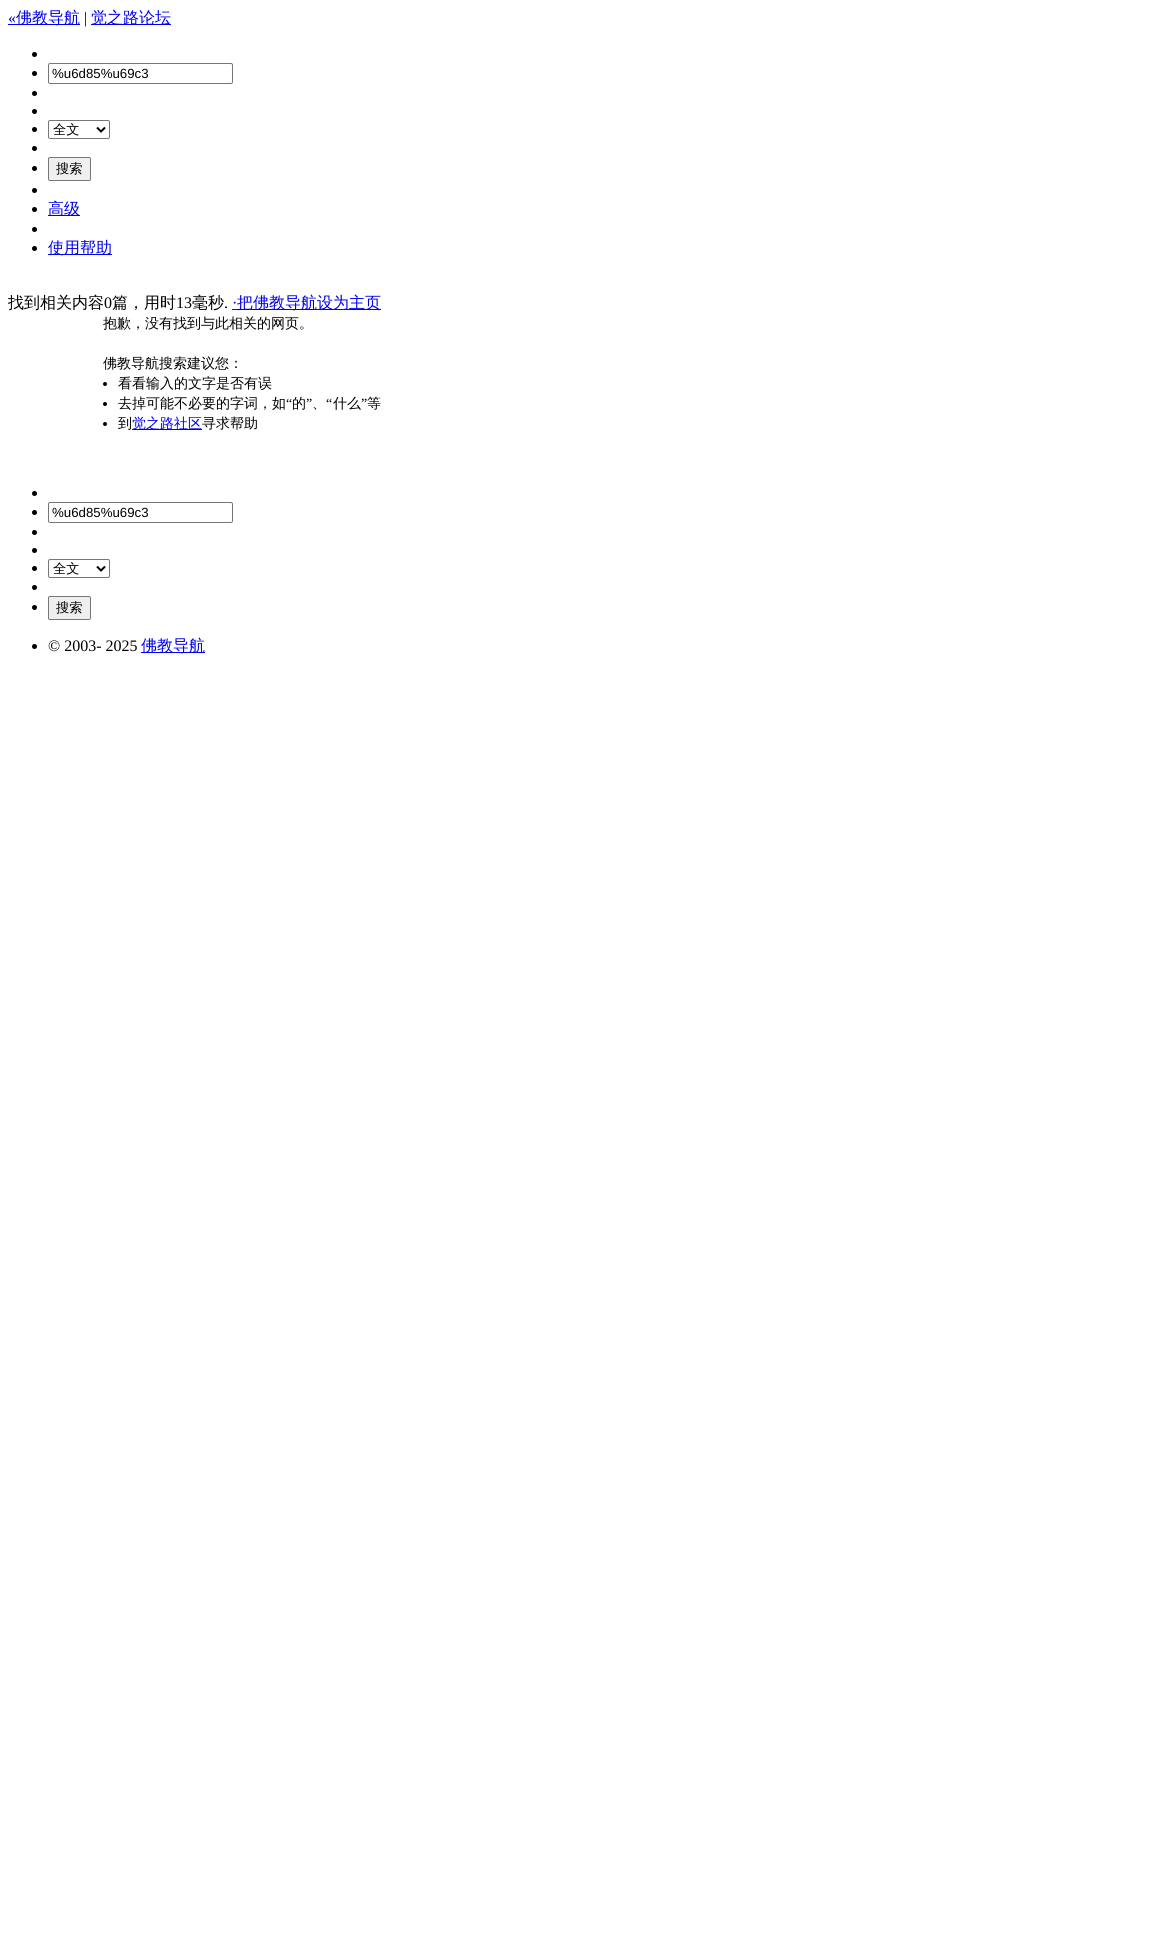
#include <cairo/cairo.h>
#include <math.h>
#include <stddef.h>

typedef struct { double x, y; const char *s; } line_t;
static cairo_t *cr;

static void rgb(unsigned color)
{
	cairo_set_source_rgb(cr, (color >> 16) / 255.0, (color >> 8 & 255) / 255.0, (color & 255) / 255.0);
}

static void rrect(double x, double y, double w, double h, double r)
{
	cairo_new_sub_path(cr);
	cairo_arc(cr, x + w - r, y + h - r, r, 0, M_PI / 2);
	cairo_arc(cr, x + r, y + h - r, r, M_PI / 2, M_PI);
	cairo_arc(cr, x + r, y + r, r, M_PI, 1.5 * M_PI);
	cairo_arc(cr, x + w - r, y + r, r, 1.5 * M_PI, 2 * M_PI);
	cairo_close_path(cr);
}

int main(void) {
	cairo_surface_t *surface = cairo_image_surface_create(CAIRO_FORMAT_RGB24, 1155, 1952);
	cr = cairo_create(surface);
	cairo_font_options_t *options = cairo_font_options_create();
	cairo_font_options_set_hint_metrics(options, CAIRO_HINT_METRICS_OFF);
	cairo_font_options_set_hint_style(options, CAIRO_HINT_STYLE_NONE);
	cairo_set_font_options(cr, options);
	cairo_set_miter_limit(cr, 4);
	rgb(0xffffff);
	cairo_paint(cr);
	rgb(0x0000ee);
	cairo_rectangle(cr, 8, 24, 72, 1);
	cairo_fill(cr);
	cairo_rectangle(cr, 91, 24, 80, 1);
	cairo_fill(cr);
	rgb(0x000000);
	cairo_arc(cr, 34.5, 54.5, 2.5, 0, 2 * M_PI);
	cairo_fill(cr);
	cairo_arc(cr, 34.5, 73.5, 2.5, 0, 2 * M_PI);
	cairo_fill(cr);
	rrect(48.5, 63.5, 184, 20, 1.5);
	rgb(0x767676);
	cairo_set_line_width(cr, 1);
	cairo_stroke(cr);
	rgb(0x000000);
	cairo_arc(cr, 34.5, 93.5, 2.5, 0, 2 * M_PI);
	cairo_fill(cr);
	cairo_arc(cr, 34.5, 111.5, 2.5, 0, 2 * M_PI);
	cairo_fill(cr);
	cairo_arc(cr, 34.5, 129.5, 2.5, 0, 2 * M_PI);
	cairo_fill(cr);
	rrect(48.5, 120.5, 61, 18, 1.5);
	rgb(0x767676);
	cairo_stroke(cr);
	cairo_new_path(cr);
	cairo_move_to(cr, 97, 127.5);
	cairo_line_to(cr, 101, 131.5);
	cairo_line_to(cr, 105, 127.5);
	rgb(0x000000);
	cairo_set_line_width(cr, 2);
	cairo_stroke(cr);
	cairo_arc(cr, 34.5, 148.5, 2.5, 0, 2 * M_PI);
	cairo_fill(cr);
	cairo_arc(cr, 34.5, 168.5, 2.5, 0, 2 * M_PI);
	cairo_fill(cr);
	rgb(0xefefef);
	rrect(48.5, 157.5, 42, 23, 1.5);
	cairo_fill_preserve(cr);
	rgb(0x767676);
	cairo_set_line_width(cr, 1);
	cairo_stroke(cr);
	rgb(0x000000);
	cairo_arc(cr, 34.5, 190.5, 2.5, 0, 2 * M_PI);
	cairo_fill(cr);
	cairo_arc(cr, 34.5, 209.5, 2.5, 0, 2 * M_PI);
	cairo_fill(cr);
	rgb(0x0000ee);
	cairo_rectangle(cr, 48, 215, 32, 1);
	cairo_fill(cr);
	rgb(0x000000);
	cairo_arc(cr, 34.5, 229.5, 2.5, 0, 2 * M_PI);
	cairo_fill(cr);
	cairo_arc(cr, 34.5, 248.5, 2.5, 0, 2 * M_PI);
	cairo_fill(cr);
	rgb(0x0000ee);
	cairo_rectangle(cr, 48, 254, 64, 1);
	cairo_fill(cr);
	cairo_rectangle(cr, 232, 309, 149, 1);
	cairo_fill(cr);
	rgb(0x000000);
	cairo_arc(cr, 105, 384, 2, 0, 2 * M_PI);
	cairo_fill(cr);
	cairo_arc(cr, 105, 404, 2, 0, 2 * M_PI);
	cairo_fill(cr);
	cairo_arc(cr, 105, 424, 2, 0, 2 * M_PI);
	cairo_fill(cr);
	rgb(0x0000ee);
	cairo_rectangle(cr, 132, 429, 70, 1);
	cairo_fill(cr);
	rgb(0x000000);
	cairo_arc(cr, 34.5, 493.5, 2.5, 0, 2 * M_PI);
	cairo_fill(cr);
	cairo_arc(cr, 34.5, 512.5, 2.5, 0, 2 * M_PI);
	cairo_fill(cr);
	rrect(48.5, 502.5, 184, 20, 1.5);
	rgb(0x767676);
	cairo_stroke(cr);
	rgb(0x000000);
	cairo_arc(cr, 34.5, 532.5, 2.5, 0, 2 * M_PI);
	cairo_fill(cr);
	cairo_arc(cr, 34.5, 550.5, 2.5, 0, 2 * M_PI);
	cairo_fill(cr);
	cairo_arc(cr, 34.5, 568.5, 2.5, 0, 2 * M_PI);
	cairo_fill(cr);
	rrect(48.5, 559.5, 61, 18, 1.5);
	rgb(0x767676);
	cairo_stroke(cr);
	cairo_new_path(cr);
	cairo_move_to(cr, 97, 566.5);
	cairo_line_to(cr, 101, 570.5);
	cairo_line_to(cr, 105, 566.5);
	rgb(0x000000);
	cairo_set_line_width(cr, 2);
	cairo_stroke(cr);
	cairo_arc(cr, 34.5, 587.5, 2.5, 0, 2 * M_PI);
	cairo_fill(cr);
	cairo_arc(cr, 34.5, 607.5, 2.5, 0, 2 * M_PI);
	cairo_fill(cr);
	rgb(0xefefef);
	rrect(48.5, 596.5, 42, 23, 1.5);
	cairo_fill_preserve(cr);
	rgb(0x767676);
	cairo_set_line_width(cr, 1);
	cairo_stroke(cr);
	rgb(0x000000);
	cairo_arc(cr, 34.5, 646.5, 2.5, 0, 2 * M_PI);
	cairo_fill(cr);
	rgb(0x0000ee);
	cairo_rectangle(cr, 141, 652, 64, 1);
	cairo_fill(cr);
	cairo_select_font_face(cr, "Liberation Serif", CAIRO_FONT_SLANT_NORMAL, CAIRO_FONT_WEIGHT_NORMAL);
	cairo_set_font_size(cr, 16);
	cairo_move_to(cr, 8, 23);
	cairo_show_text(cr, "«");
	cairo_select_font_face(cr, "WenQuanYi Zen Hei Medium", CAIRO_FONT_SLANT_NORMAL, CAIRO_FONT_WEIGHT_NORMAL);
	cairo_move_to(cr, 16, 23);
	cairo_show_text(cr, "佛教导航");
	cairo_select_font_face(cr, "Liberation Serif", CAIRO_FONT_SLANT_NORMAL, CAIRO_FONT_WEIGHT_NORMAL);
	rgb(0x000000);
	cairo_move_to(cr, 84, 23);
	cairo_show_text(cr, "|");
	cairo_select_font_face(cr, "WenQuanYi Zen Hei Medium", CAIRO_FONT_SLANT_NORMAL, CAIRO_FONT_WEIGHT_NORMAL);
	rgb(0x0000ee);
	cairo_move_to(cr, 91, 23);
	cairo_show_text(cr, "觉之路论坛");
	cairo_select_font_face(cr, "Liberation Sans", CAIRO_FONT_SLANT_NORMAL, CAIRO_FONT_WEIGHT_NORMAL);
	cairo_set_font_size(cr, 13.25);
	rgb(0x000000);
	cairo_move_to(cr, 52, 78);
	cairo_show_text(cr, "%u6d85%u69c3");
	cairo_select_font_face(cr, "WenQuanYi Zen Hei Medium", CAIRO_FONT_SLANT_NORMAL, CAIRO_FONT_WEIGHT_NORMAL);
	cairo_move_to(cr, 53, 134);
	cairo_show_text(cr, "全文");
	cairo_move_to(cr, 56, 173);
	cairo_show_text(cr, "搜索");
	cairo_set_font_size(cr, 16);
	rgb(0x0000ee);
	cairo_move_to(cr, 48, 214);
	cairo_show_text(cr, "高级");
	cairo_move_to(cr, 48, 253);
	cairo_show_text(cr, "使用帮助");
	rgb(0x000000);
	cairo_move_to(cr, 8, 308);
	cairo_show_text(cr, "找到相关内容");
	cairo_select_font_face(cr, "Liberation Serif", CAIRO_FONT_SLANT_NORMAL, CAIRO_FONT_WEIGHT_NORMAL);
	cairo_move_to(cr, 104, 308);
	cairo_show_text(cr, "0");
	cairo_select_font_face(cr, "WenQuanYi Zen Hei Medium", CAIRO_FONT_SLANT_NORMAL, CAIRO_FONT_WEIGHT_NORMAL);
	cairo_move_to(cr, 112, 308);
	cairo_show_text(cr, "篇，用时");
	cairo_select_font_face(cr, "Liberation Serif", CAIRO_FONT_SLANT_NORMAL, CAIRO_FONT_WEIGHT_NORMAL);
	cairo_move_to(cr, 176, 308);
	cairo_show_text(cr, "13");
	cairo_select_font_face(cr, "WenQuanYi Zen Hei Medium", CAIRO_FONT_SLANT_NORMAL, CAIRO_FONT_WEIGHT_NORMAL);
	cairo_move_to(cr, 192, 308);
	cairo_show_text(cr, "毫秒");
	cairo_select_font_face(cr, "Liberation Serif", CAIRO_FONT_SLANT_NORMAL, CAIRO_FONT_WEIGHT_NORMAL);
	rgb(0x0000ee);
	cairo_move_to(cr, 232, 308);
	cairo_show_text(cr, "·");
	cairo_select_font_face(cr, "WenQuanYi Zen Hei Medium", CAIRO_FONT_SLANT_NORMAL, CAIRO_FONT_WEIGHT_NORMAL);
	cairo_move_to(cr, 237, 308);
	cairo_show_text(cr, "把佛教导航设为主页");
	cairo_select_font_face(cr, "Liberation Serif", CAIRO_FONT_SLANT_NORMAL, CAIRO_FONT_WEIGHT_NORMAL);
	rgb(0x000000);
	cairo_move_to(cr, 224, 308);
	cairo_show_text(cr, ".");
	cairo_select_font_face(cr, "WenQuanYi Zen Hei Medium", CAIRO_FONT_SLANT_NORMAL, CAIRO_FONT_WEIGHT_NORMAL);
	cairo_set_font_size(cr, 14);
	{
		static const line_t items[] = {
			{103, 328, "抱歉，没有找到与此相关的网页。"},
			{103, 368, "佛教导航搜索建议您："},
			{118, 388, "看看输入的文字是否有误"},
			{118, 408, "去掉可能不必要的字词，如"},
		};
		for (size_t i = 0; i < sizeof items / sizeof *items; i++) {
			cairo_move_to(cr, items[i].x, items[i].y);
			cairo_show_text(cr, items[i].s);
		}
	}
	cairo_select_font_face(cr, "Liberation Serif", CAIRO_FONT_SLANT_NORMAL, CAIRO_FONT_WEIGHT_NORMAL);
	cairo_move_to(cr, 286, 408);
	cairo_show_text(cr, "“");
	cairo_select_font_face(cr, "WenQuanYi Zen Hei Medium", CAIRO_FONT_SLANT_NORMAL, CAIRO_FONT_WEIGHT_NORMAL);
	cairo_move_to(cr, 292, 408);
	cairo_show_text(cr, "的");
	cairo_select_font_face(cr, "Liberation Serif", CAIRO_FONT_SLANT_NORMAL, CAIRO_FONT_WEIGHT_NORMAL);
	cairo_move_to(cr, 306, 408);
	cairo_show_text(cr, "”");
	cairo_move_to(cr, 326, 408);
	cairo_show_text(cr, "“");
	cairo_select_font_face(cr, "WenQuanYi Zen Hei Medium", CAIRO_FONT_SLANT_NORMAL, CAIRO_FONT_WEIGHT_NORMAL);
	cairo_move_to(cr, 333, 408);
	cairo_show_text(cr, "什么");
	cairo_select_font_face(cr, "Liberation Serif", CAIRO_FONT_SLANT_NORMAL, CAIRO_FONT_WEIGHT_NORMAL);
	cairo_move_to(cr, 361, 408);
	cairo_show_text(cr, "”");
	cairo_select_font_face(cr, "WenQuanYi Zen Hei Medium", CAIRO_FONT_SLANT_NORMAL, CAIRO_FONT_WEIGHT_NORMAL);
	{
		static const line_t items[] = {
			{367, 408, "等"},
			{312, 408, "、"},
			{118, 428, "到"},
		};
		for (size_t i = 0; i < sizeof items / sizeof *items; i++) {
			cairo_move_to(cr, items[i].x, items[i].y);
			cairo_show_text(cr, items[i].s);
		}
	}
	rgb(0x0000ee);
	cairo_move_to(cr, 132, 428);
	cairo_show_text(cr, "觉之路社区");
	rgb(0x000000);
	cairo_move_to(cr, 202, 428);
	cairo_show_text(cr, "寻求帮助");
	cairo_select_font_face(cr, "Liberation Sans", CAIRO_FONT_SLANT_NORMAL, CAIRO_FONT_WEIGHT_NORMAL);
	cairo_set_font_size(cr, 13.25);
	cairo_move_to(cr, 52, 517);
	cairo_show_text(cr, "%u6d85%u69c3");
	cairo_select_font_face(cr, "WenQuanYi Zen Hei Medium", CAIRO_FONT_SLANT_NORMAL, CAIRO_FONT_WEIGHT_NORMAL);
	cairo_move_to(cr, 53, 573);
	cairo_show_text(cr, "全文");
	cairo_move_to(cr, 56, 612);
	cairo_show_text(cr, "搜索");
	cairo_select_font_face(cr, "Liberation Serif", CAIRO_FONT_SLANT_NORMAL, CAIRO_FONT_WEIGHT_NORMAL);
	cairo_set_font_size(cr, 16);
	cairo_move_to(cr, 48, 651);
	cairo_show_text(cr, "© 2003- 2025");
	cairo_select_font_face(cr, "WenQuanYi Zen Hei Medium", CAIRO_FONT_SLANT_NORMAL, CAIRO_FONT_WEIGHT_NORMAL);
	rgb(0x0000ee);
	cairo_move_to(cr, 141, 651);
	cairo_show_text(cr, "佛教导航");
	cairo_surface_write_to_png(surface, "page.png");
	cairo_font_options_destroy(options);
	cairo_destroy(cr);
	cairo_surface_destroy(surface);
	return 0;
}
